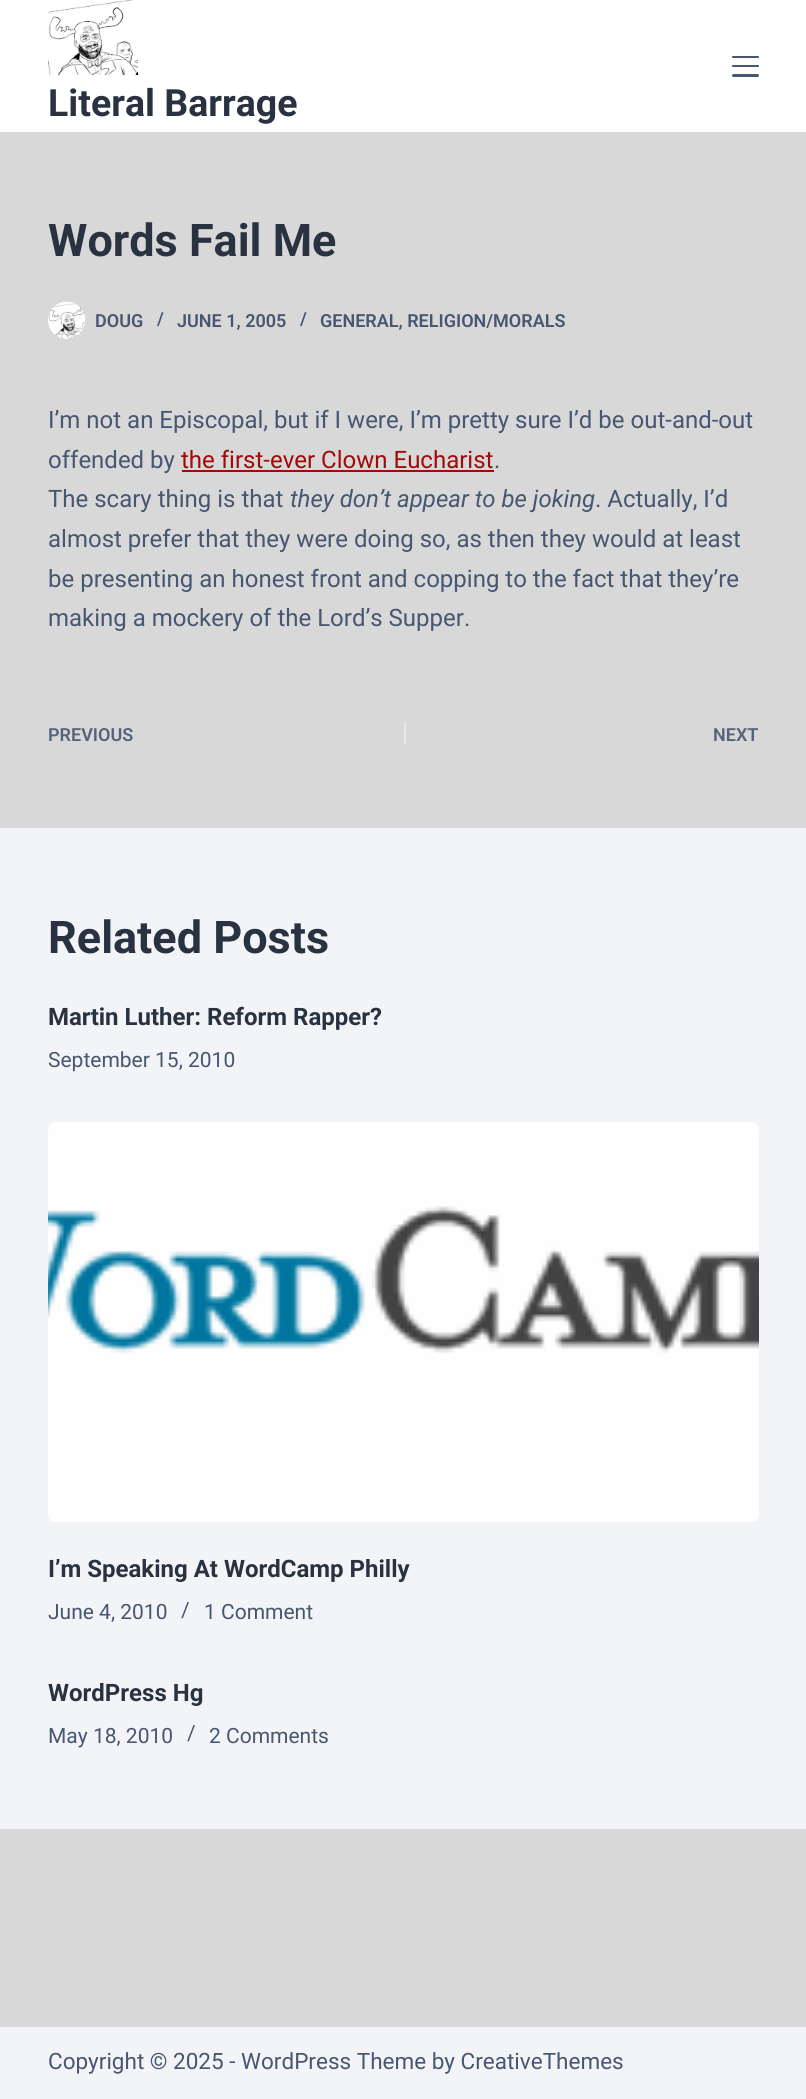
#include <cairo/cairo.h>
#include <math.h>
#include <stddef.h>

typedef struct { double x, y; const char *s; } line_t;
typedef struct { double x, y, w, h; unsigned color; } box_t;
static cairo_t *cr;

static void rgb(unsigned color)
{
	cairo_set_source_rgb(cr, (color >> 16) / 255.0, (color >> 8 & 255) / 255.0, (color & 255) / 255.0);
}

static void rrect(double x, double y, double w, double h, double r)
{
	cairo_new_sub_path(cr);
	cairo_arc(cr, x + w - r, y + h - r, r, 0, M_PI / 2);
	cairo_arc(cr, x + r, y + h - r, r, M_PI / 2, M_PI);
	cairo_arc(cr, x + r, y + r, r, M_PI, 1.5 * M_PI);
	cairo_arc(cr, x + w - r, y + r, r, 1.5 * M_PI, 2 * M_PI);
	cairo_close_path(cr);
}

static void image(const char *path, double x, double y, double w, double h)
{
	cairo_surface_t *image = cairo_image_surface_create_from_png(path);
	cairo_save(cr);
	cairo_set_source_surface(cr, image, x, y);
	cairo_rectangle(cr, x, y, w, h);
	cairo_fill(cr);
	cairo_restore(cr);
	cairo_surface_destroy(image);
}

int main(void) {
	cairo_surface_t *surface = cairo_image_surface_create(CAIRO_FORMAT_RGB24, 806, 2099);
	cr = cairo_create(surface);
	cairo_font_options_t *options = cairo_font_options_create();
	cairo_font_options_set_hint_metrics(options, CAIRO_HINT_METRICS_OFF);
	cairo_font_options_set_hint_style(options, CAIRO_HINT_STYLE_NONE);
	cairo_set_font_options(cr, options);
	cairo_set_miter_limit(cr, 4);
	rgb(0xd8d8d8);
	cairo_paint(cr);
	rgb(0xffffff);
	cairo_rectangle(cr, 0, 0, 806, 132);
	cairo_fill(cr);
	rgb(0x475671);
	rrect(732, 56, 27, 2, 1);
	cairo_fill(cr);
	rrect(732, 65, 27, 2, 1);
	cairo_fill(cr);
	rrect(732, 74, 27, 3, 1.5);
	cairo_fill(cr);
	image("img/1.png", 48, 0, 90, 75);
	image("img/2.png", 48, 301, 38, 38);
	{
		static const box_t items[] = {
			{182, 470, 312, 2, 0xa30909},
			{404, 723, 2, 21, 0xe7e9ef},
			{0, 828, 806, 1001, 0xf3f4f7},
		};
		for (size_t i = 0; i < sizeof items / sizeof *items; i++) {
			rgb(items[i].color);
			cairo_rectangle(cr, items[i].x, items[i].y, items[i].w, items[i].h);
			cairo_fill(cr);
		}
	}
	image("img/3.png", 48, 1122, 711, 400);
	cairo_rectangle(cr, 0, 2027, 806, 72);
	cairo_fill(cr);
	cairo_select_font_face(cr, "Roboto", CAIRO_FONT_SLANT_NORMAL, CAIRO_FONT_WEIGHT_BOLD);
	cairo_set_font_size(cr, 37.5);
	rgb(0x293241);
	cairo_move_to(cr, 48, 116);
	cairo_show_text(cr, "Literal Barrage");
	cairo_set_font_size(cr, 45);
	cairo_move_to(cr, 48, 256);
	cairo_show_text(cr, "Words Fail Me");
	cairo_select_font_face(cr, "Roboto SemiBold", CAIRO_FONT_SLANT_NORMAL, CAIRO_FONT_WEIGHT_NORMAL);
	cairo_set_font_size(cr, 18);
	rgb(0x475671);
	{
		static const line_t items[] = {
			{95, 327, "DOUG"},
			{157, 325, "/"},
			{177, 327, "JUNE 1, 2005"},
			{300, 325, "/"},
			{320, 327, "GENERAL, RELIGION/MORALS"},
		};
		for (size_t i = 0; i < sizeof items / sizeof *items; i++) {
			cairo_move_to(cr, items[i].x, items[i].y);
			cairo_show_text(cr, items[i].s);
		}
	}
	cairo_select_font_face(cr, "Roboto", CAIRO_FONT_SLANT_NORMAL, CAIRO_FONT_WEIGHT_NORMAL);
	cairo_set_font_size(cr, 24);
	cairo_move_to(cr, 48, 428);
	cairo_show_text(cr, "I’m not an Episcopal, but if I were, I’m pretty sure I’d be out-and-out");
	cairo_move_to(cr, 48, 468);
	cairo_show_text(cr, "offended by");
	rgb(0xa30909);
	cairo_move_to(cr, 181, 468);
	cairo_show_text(cr, "the first-ever Clown Eucharist");
	rgb(0x475671);
	cairo_move_to(cr, 494, 468);
	cairo_show_text(cr, ".");
	cairo_move_to(cr, 48, 507);
	cairo_show_text(cr, "The scary thing is that");
	cairo_select_font_face(cr, "Roboto", CAIRO_FONT_SLANT_ITALIC, CAIRO_FONT_WEIGHT_NORMAL);
	cairo_move_to(cr, 290, 507);
	cairo_show_text(cr, "they don’t appear to be joking");
	cairo_select_font_face(cr, "Roboto", CAIRO_FONT_SLANT_NORMAL, CAIRO_FONT_WEIGHT_NORMAL);
	{
		static const line_t items[] = {
			{595, 507, ". Actually, I’d"},
			{48, 547, "almost prefer that they were doing so, as then they would at least"},
			{48, 587, "be presenting an honest front and copping to the fact that they’re"},
			{48, 626, "making a mockery of the Lord’s Supper."},
		};
		for (size_t i = 0; i < sizeof items / sizeof *items; i++) {
			cairo_move_to(cr, items[i].x, items[i].y);
			cairo_show_text(cr, items[i].s);
		}
	}
	cairo_select_font_face(cr, "Roboto SemiBold", CAIRO_FONT_SLANT_NORMAL, CAIRO_FONT_WEIGHT_NORMAL);
	cairo_set_font_size(cr, 18);
	rgb(0x56637b);
	cairo_move_to(cr, 48, 741);
	cairo_show_text(cr, "PREVIOUS");
	cairo_move_to(cr, 713, 741);
	cairo_show_text(cr, "NEXT");
	cairo_select_font_face(cr, "Roboto", CAIRO_FONT_SLANT_NORMAL, CAIRO_FONT_WEIGHT_BOLD);
	cairo_set_font_size(cr, 45);
	rgb(0x293241);
	cairo_move_to(cr, 48, 953);
	cairo_show_text(cr, "Related Posts");
	cairo_set_font_size(cr, 24);
	cairo_move_to(cr, 48, 1025);
	cairo_show_text(cr, "Martin Luther: Reform Rapper?");
	cairo_select_font_face(cr, "Roboto", CAIRO_FONT_SLANT_NORMAL, CAIRO_FONT_WEIGHT_NORMAL);
	cairo_set_font_size(cr, 21);
	rgb(0x475671);
	cairo_move_to(cr, 48, 1067);
	cairo_show_text(cr, "September 15, 2010");
	cairo_select_font_face(cr, "Roboto", CAIRO_FONT_SLANT_NORMAL, CAIRO_FONT_WEIGHT_BOLD);
	cairo_set_font_size(cr, 24);
	rgb(0x293241);
	cairo_move_to(cr, 48, 1577);
	cairo_show_text(cr, "I’m Speaking At WordCamp Philly");
	cairo_select_font_face(cr, "Roboto", CAIRO_FONT_SLANT_NORMAL, CAIRO_FONT_WEIGHT_NORMAL);
	cairo_set_font_size(cr, 21);
	rgb(0x475671);
	{
		static const line_t items[] = {
			{48, 1619, "June 4, 2010"},
			{181, 1617, "/"},
			{204, 1619, "1 Comment"},
		};
		for (size_t i = 0; i < sizeof items / sizeof *items; i++) {
			cairo_move_to(cr, items[i].x, items[i].y);
			cairo_show_text(cr, items[i].s);
		}
	}
	cairo_select_font_face(cr, "Roboto", CAIRO_FONT_SLANT_NORMAL, CAIRO_FONT_WEIGHT_BOLD);
	cairo_set_font_size(cr, 24);
	rgb(0x293241);
	cairo_move_to(cr, 48, 1701);
	cairo_show_text(cr, "WordPress Hg");
	cairo_select_font_face(cr, "Roboto", CAIRO_FONT_SLANT_NORMAL, CAIRO_FONT_WEIGHT_NORMAL);
	cairo_set_font_size(cr, 21);
	rgb(0x475671);
	{
		static const line_t items[] = {
			{48, 1743, "May 18, 2010"},
			{187, 1740, "/"},
			{209, 1743, "2 Comments"},
		};
		for (size_t i = 0; i < sizeof items / sizeof *items; i++) {
			cairo_move_to(cr, items[i].x, items[i].y);
			cairo_show_text(cr, items[i].s);
		}
	}
	cairo_set_font_size(cr, 22.5);
	cairo_move_to(cr, 48, 2069);
	cairo_show_text(cr, "Copyright © 2025 - WordPress Theme by CreativeThemes");
	cairo_surface_write_to_png(surface, "page.png");
	cairo_font_options_destroy(options);
	cairo_destroy(cr);
	cairo_surface_destroy(surface);
	return 0;
}
